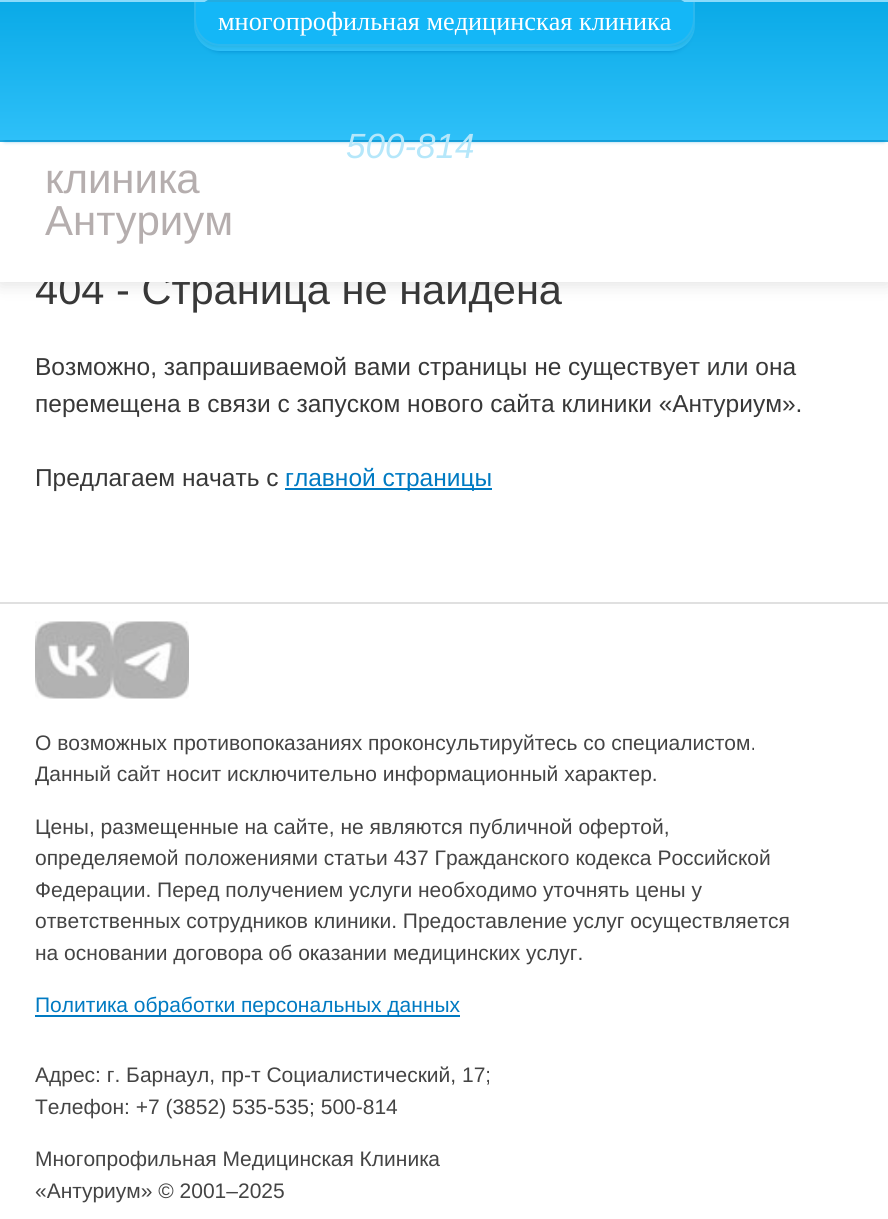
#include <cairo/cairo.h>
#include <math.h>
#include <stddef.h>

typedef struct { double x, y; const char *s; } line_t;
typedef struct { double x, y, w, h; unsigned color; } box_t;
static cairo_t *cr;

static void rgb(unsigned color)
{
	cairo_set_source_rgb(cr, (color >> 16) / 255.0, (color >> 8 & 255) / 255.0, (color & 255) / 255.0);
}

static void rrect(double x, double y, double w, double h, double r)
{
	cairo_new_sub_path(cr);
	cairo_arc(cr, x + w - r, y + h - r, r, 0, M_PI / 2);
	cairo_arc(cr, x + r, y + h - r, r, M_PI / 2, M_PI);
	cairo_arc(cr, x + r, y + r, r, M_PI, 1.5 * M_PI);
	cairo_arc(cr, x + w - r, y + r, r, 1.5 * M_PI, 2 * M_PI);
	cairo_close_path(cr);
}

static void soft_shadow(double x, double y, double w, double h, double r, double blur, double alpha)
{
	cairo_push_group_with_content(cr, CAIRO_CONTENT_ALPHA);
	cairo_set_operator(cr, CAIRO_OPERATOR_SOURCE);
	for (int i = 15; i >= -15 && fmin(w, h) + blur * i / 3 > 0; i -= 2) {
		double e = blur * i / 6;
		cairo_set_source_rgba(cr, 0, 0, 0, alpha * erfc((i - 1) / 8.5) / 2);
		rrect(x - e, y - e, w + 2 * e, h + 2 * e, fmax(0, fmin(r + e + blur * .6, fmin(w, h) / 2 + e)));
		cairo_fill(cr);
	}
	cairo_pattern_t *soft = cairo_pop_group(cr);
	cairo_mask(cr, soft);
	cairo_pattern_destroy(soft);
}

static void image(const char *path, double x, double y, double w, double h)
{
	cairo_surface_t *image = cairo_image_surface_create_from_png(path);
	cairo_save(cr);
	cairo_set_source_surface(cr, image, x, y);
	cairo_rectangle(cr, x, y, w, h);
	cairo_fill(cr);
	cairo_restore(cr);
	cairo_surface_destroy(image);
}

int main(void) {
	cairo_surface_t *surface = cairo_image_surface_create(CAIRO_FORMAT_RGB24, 888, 1219);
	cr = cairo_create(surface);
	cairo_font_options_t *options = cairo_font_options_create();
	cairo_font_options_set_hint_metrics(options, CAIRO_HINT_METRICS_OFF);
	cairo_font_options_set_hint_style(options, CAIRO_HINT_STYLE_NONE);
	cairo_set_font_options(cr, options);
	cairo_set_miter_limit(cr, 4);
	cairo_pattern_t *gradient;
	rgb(0xffffff);
	cairo_paint(cr);
	rgb(0x323232);
	soft_shadow(0, 137, 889, 147, 0, 9, 0.15);
	{
		static const box_t items[] = {
			{0, 140, 888, 2, 0x22aadf},
			{0, 0, 888, 2, 0x8adbfb},
			{285, 488, 207, 2, 0x007ac2},
			{0, 602, 888, 2, 0xe0e0e0},
		};
		for (size_t i = 0; i < sizeof items / sizeof *items; i++) {
			rgb(items[i].color);
			cairo_rectangle(cr, items[i].x, items[i].y, items[i].w, items[i].h);
			cairo_fill(cr);
		}
	}
	image("img/1.png", 35, 621, 77, 78);
	image("img/2.png", 112, 621, 77, 78);
	rgb(0x007ac2);
	cairo_rectangle(cr, 35, 1015, 425, 2);
	cairo_fill(cr);
	cairo_select_font_face(cr, "Liberation Sans", CAIRO_FONT_SLANT_NORMAL, CAIRO_FONT_WEIGHT_NORMAL);
	cairo_set_font_size(cr, 41.6);
	rgb(0x383838);
	cairo_move_to(cr, 35, 304);
	cairo_show_text(cr, "404 - Страница не найдена");
	rgb(0xffffff);
	cairo_rectangle(cr, 0, 142, 888, 140);
	cairo_fill(cr);
	rgb(0x0089cc);
	soft_shadow(5, 11, 879, 129, 0, 2.5, 1);
	gradient = cairo_pattern_create_linear(445, 1.7, 445, 140);
	cairo_pattern_add_color_stop_rgba(gradient, 0, 0.039, 0.667, 0.906, 1);
	cairo_pattern_add_color_stop_rgba(gradient, 1, 0.18, 0.753, 0.973, 1);
	cairo_set_source(cr, gradient);
	cairo_pattern_destroy(gradient);
	cairo_rectangle(cr, 0, 2, 888, 138);
	cairo_fill(cr);
	cairo_select_font_face(cr, "Liberation Sans", CAIRO_FONT_SLANT_ITALIC, CAIRO_FONT_WEIGHT_NORMAL);
	cairo_set_font_size(cr, 35);
	rgb(0xb5e7fa);
	cairo_move_to(cr, 346, 158);
	cairo_show_text(cr, "500-814");
	rgb(0x0089cc);
	soft_shadow(200, 7, 490, 44, 21, 2.5, 1);
	gradient = cairo_pattern_create_linear(445, -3.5, 445, 51);
	cairo_pattern_add_color_stop_rgba(gradient, 0, 0.133, 0.667, 0.875, 1);
	cairo_pattern_add_color_stop_rgba(gradient, 1, 0.18, 0.753, 0.973, 1);
	cairo_set_source(cr, gradient);
	cairo_pattern_destroy(gradient);
	rrect(194, -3, 501, 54, 26);
	cairo_fill(cr);
	rgb(0x27aed7);
	soft_shadow(200, 12, 490, 34, 21, 2.5, 1);
	rgb(0x14b7f7);
	cairo_new_path(cr);
	cairo_move_to(cr, 194, 2);
	cairo_line_to(cr, 695, 2);
	cairo_line_to(cr, 695, 20);
	cairo_curve_to(cr, 695, 34.5, 683.5, 46, 669, 46);
	cairo_line_to(cr, 220, 46);
	cairo_curve_to(cr, 205.5, 46, 194, 34.5, 194, 20);
	cairo_close_path(cr);
	cairo_fill(cr);
	rgb(0x2cb8ee);
	cairo_set_fill_rule(cr, CAIRO_FILL_RULE_EVEN_ODD);
	cairo_new_path(cr);
	cairo_move_to(cr, 194, 2);
	cairo_line_to(cr, 695, 2);
	cairo_line_to(cr, 695, 19);
	cairo_curve_to(cr, 695, 34, 683, 46, 668, 46);
	cairo_line_to(cr, 220, 46);
	cairo_curve_to(cr, 206, 46, 194, 34, 194, 19);
	cairo_close_path(cr);
	cairo_move_to(cr, 196, 2);
	cairo_line_to(cr, 693, 2);
	cairo_line_to(cr, 693, 19);
	cairo_curve_to(cr, 693, 33, 682, 44, 668, 44);
	cairo_line_to(cr, 220, 44);
	cairo_curve_to(cr, 207, 44, 196, 33, 196, 19);
	cairo_close_path(cr);
	cairo_fill(cr);
	cairo_select_font_face(cr, "Liberation Serif", CAIRO_FONT_SLANT_NORMAL, CAIRO_FONT_WEIGHT_NORMAL);
	cairo_set_font_size(cr, 26.25);
	rgb(0xffffff);
	cairo_move_to(cr, 218, 30);
	cairo_show_text(cr, "многопрофильная медицинская клиника");
	cairo_select_font_face(cr, "Liberation Sans", CAIRO_FONT_SLANT_NORMAL, CAIRO_FONT_WEIGHT_NORMAL);
	cairo_set_font_size(cr, 42);
	rgb(0xb5aeae);
	cairo_move_to(cr, 45, 235);
	cairo_show_text(cr, "Антуриум");
	cairo_move_to(cr, 45, 193);
	cairo_show_text(cr, "клиника");
	cairo_set_font_size(cr, 24.5);
	rgb(0x383838);
	{
		static const line_t items[] = {
			{35, 375, "Возможно, запрашиваемой вами страницы не существует или она"},
			{35, 412, "перемещена в связи с запуском нового сайта клиники «Антуриум»."},
			{35, 486, "Предлагаем начать с"},
		};
		for (size_t i = 0; i < sizeof items / sizeof *items; i++) {
			cairo_move_to(cr, items[i].x, items[i].y);
			cairo_show_text(cr, items[i].s);
		}
	}
	rgb(0x007ac2);
	cairo_move_to(cr, 285, 486);
	cairo_show_text(cr, "главной страницы");
	cairo_set_font_size(cr, 21);
	rgb(0x444444);
	{
		static const line_t items[] = {
			{35, 750, "О возможных противопоказаниях проконсультируйтесь со специалистом."},
			{35, 781, "Данный сайт носит исключительно информационный характер."},
			{35, 834, "Цены, размещенные на сайте, не являются публичной офертой,"},
			{35, 865, "определяемой положениями статьи 437 Гражданского кодекса Российской"},
			{35, 897, "Федерации. Перед получением услуги необходимо уточнять цены у"},
			{35, 928, "ответственных сотрудников клиники. Предоставление услуг осуществляется"},
			{35, 960, "на основании договора об оказании медицинских услуг."},
		};
		for (size_t i = 0; i < sizeof items / sizeof *items; i++) {
			cairo_move_to(cr, items[i].x, items[i].y);
			cairo_show_text(cr, items[i].s);
		}
	}
	rgb(0x007ac2);
	cairo_move_to(cr, 35, 1012);
	cairo_show_text(cr, "Политика обработки персональных данных");
	rgb(0x444444);
	{
		static const line_t items[] = {
			{35, 1082, "Адрес: г. Барнаул, пр-т Социалистический, 17;"},
			{35, 1114, "Телефон: +7 (3852) 535-535; 500-814"},
			{35, 1166, "Многопрофильная Медицинская Клиника"},
			{35, 1198, "«Антуриум» © 2001–2025"},
		};
		for (size_t i = 0; i < sizeof items / sizeof *items; i++) {
			cairo_move_to(cr, items[i].x, items[i].y);
			cairo_show_text(cr, items[i].s);
		}
	}
	cairo_surface_write_to_png(surface, "page.png");
	cairo_font_options_destroy(options);
	cairo_destroy(cr);
	cairo_surface_destroy(surface);
	return 0;
}
